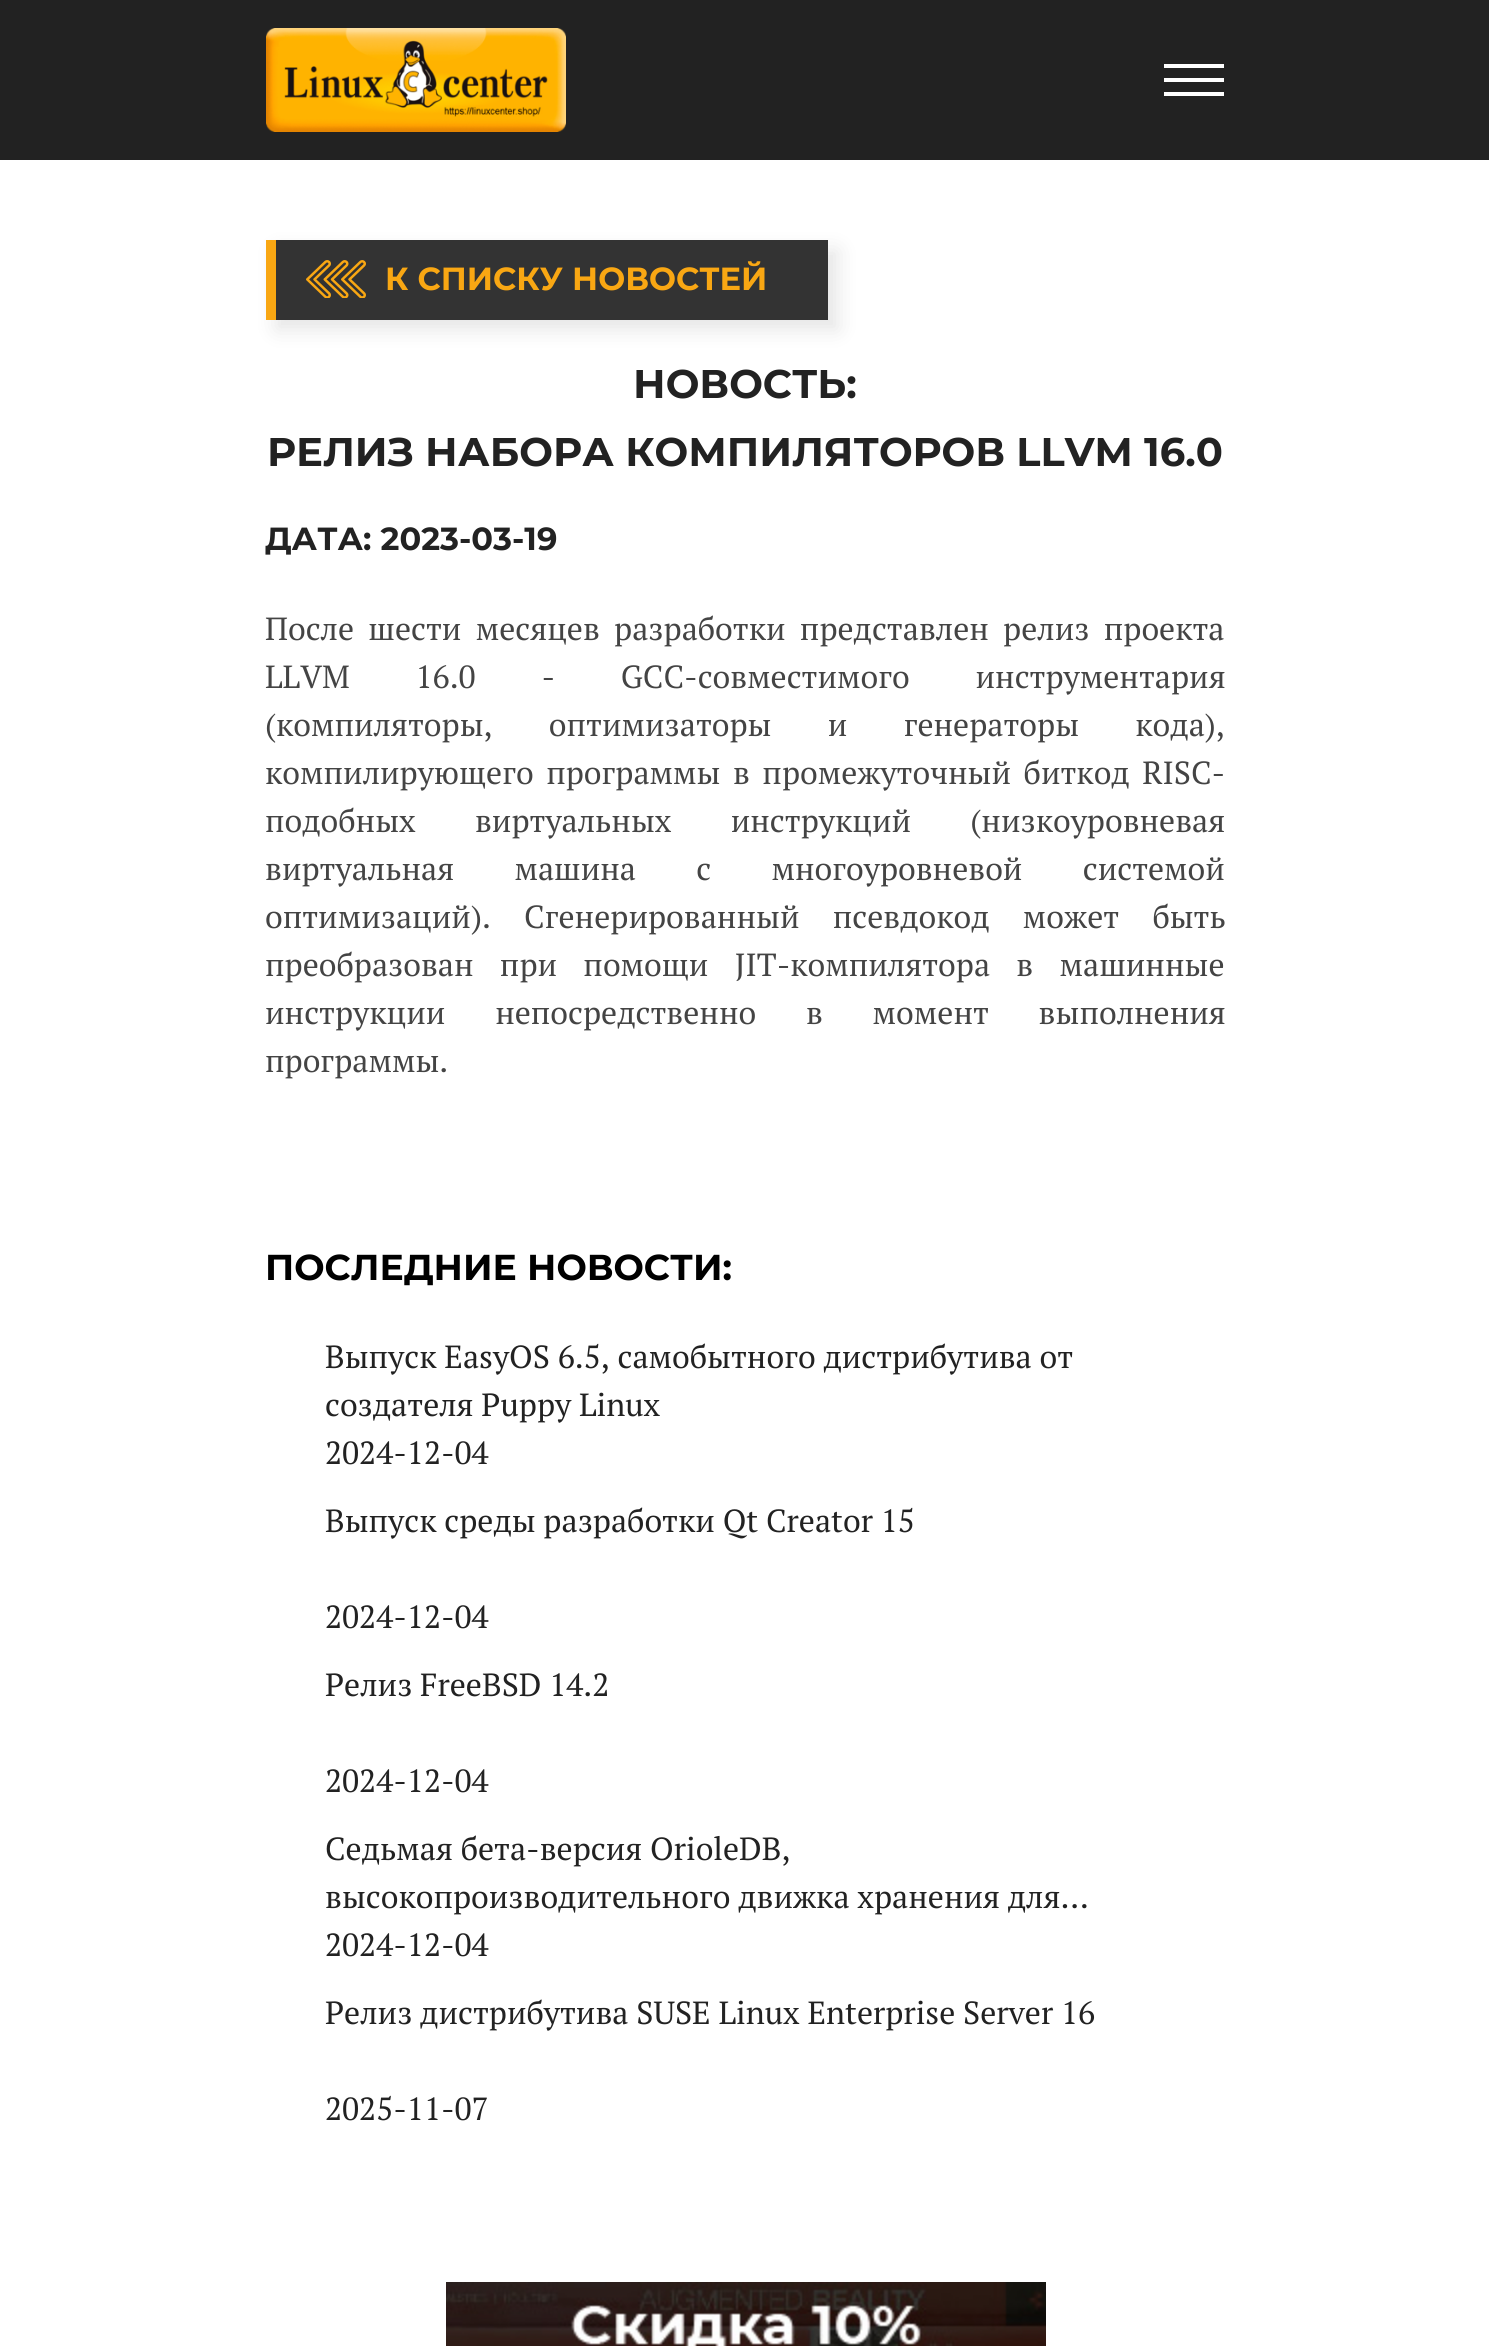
#include <cairo/cairo.h>
#include <math.h>
#include <stddef.h>

typedef struct { double x, y; const char *s; } line_t;
typedef struct { double x, y, w, h; unsigned color; } box_t;
static cairo_t *cr;

static void rgb(unsigned color)
{
	cairo_set_source_rgb(cr, (color >> 16) / 255.0, (color >> 8 & 255) / 255.0, (color & 255) / 255.0);
}

static void tracked(double x, double y, const char *s, double letter, double word)
{
	cairo_move_to(cr, x, y);
	while (*s) {
		char ch[5] = {0};
		int n = 0;
		do ch[n++] = *s++; while ((*s & 0xC0) == 0x80);
		cairo_show_text(cr, ch);
		cairo_rel_move_to(cr, letter + word * (*ch == ' '), 0);
	}
}

static void rrect(double x, double y, double w, double h, double r)
{
	cairo_new_sub_path(cr);
	cairo_arc(cr, x + w - r, y + h - r, r, 0, M_PI / 2);
	cairo_arc(cr, x + r, y + h - r, r, M_PI / 2, M_PI);
	cairo_arc(cr, x + r, y + r, r, M_PI, 1.5 * M_PI);
	cairo_arc(cr, x + w - r, y + r, r, 1.5 * M_PI, 2 * M_PI);
	cairo_close_path(cr);
}

static void soft_shadow(double x, double y, double w, double h, double r, double blur, double alpha)
{
	cairo_push_group_with_content(cr, CAIRO_CONTENT_ALPHA);
	cairo_set_operator(cr, CAIRO_OPERATOR_SOURCE);
	for (int i = 15; i >= -15 && fmin(w, h) + blur * i / 3 > 0; i -= 2) {
		double e = blur * i / 6;
		cairo_set_source_rgba(cr, 0, 0, 0, alpha * erfc((i - 1) / 8.5) / 2);
		rrect(x - e, y - e, w + 2 * e, h + 2 * e, fmax(0, fmin(r + e + blur * .6, fmin(w, h) / 2 + e)));
		cairo_fill(cr);
	}
	cairo_pattern_t *soft = cairo_pop_group(cr);
	cairo_mask(cr, soft);
	cairo_pattern_destroy(soft);
}

static void image(const char *path, double x, double y, double w, double h)
{
	cairo_surface_t *image = cairo_image_surface_create_from_png(path);
	cairo_save(cr);
	cairo_set_source_surface(cr, image, x, y);
	cairo_rectangle(cr, x, y, w, h);
	cairo_fill(cr);
	cairo_restore(cr);
	cairo_surface_destroy(image);
}

int main(void) {
	cairo_surface_t *surface = cairo_image_surface_create(CAIRO_FORMAT_RGB24, 1489, 2346);
	cr = cairo_create(surface);
	cairo_font_options_t *options = cairo_font_options_create();
	cairo_font_options_set_hint_metrics(options, CAIRO_HINT_METRICS_OFF);
	cairo_font_options_set_hint_style(options, CAIRO_HINT_STYLE_NONE);
	cairo_set_font_options(cr, options);
	cairo_set_miter_limit(cr, 4);
	rgb(0xffffff);
	cairo_paint(cr);
	rgb(0x222222);
	cairo_rectangle(cr, 0, 0, 1489, 160);
	cairo_fill(cr);
	image("img/1.png", 266, 28, 300, 104);
	{
		static const box_t items[] = {
			{1164, 64, 60, 4, 0xffffff},
			{1164, 78, 60, 4, 0xffffff},
			{1164, 92, 60, 4, 0xffffff},
		};
		for (size_t i = 0; i < sizeof items / sizeof *items; i++) {
			rgb(items[i].color);
			cairo_rectangle(cr, items[i].x, items[i].y, items[i].w, items[i].h);
			cairo_fill(cr);
		}
	}
	rgb(0x000000);
	soft_shadow(276, 250, 562, 80, 0, 10, 0.1);
	rgb(0x333333);
	cairo_rectangle(cr, 276, 240, 552, 80);
	cairo_fill(cr);
	rgb(0xf9a713);
	cairo_rectangle(cr, 266, 240, 10, 80);
	cairo_fill(cr);
	image("img/2.png", 306, 260, 60, 38);
	image("img/3.png", 446, 2282, 600, 64);
	cairo_select_font_face(cr, "Montserrat", CAIRO_FONT_SLANT_NORMAL, CAIRO_FONT_WEIGHT_BOLD);
	cairo_set_font_size(cr, 32);
	cairo_move_to(cr, 385, 290);
	cairo_show_text(cr, "К СПИСКУ НОВОСТЕЙ");
	cairo_set_font_size(cr, 40);
	rgb(0x222222);
	cairo_move_to(cr, 633, 398);
	cairo_show_text(cr, "НОВОСТЬ:");
	cairo_move_to(cr, 267, 466);
	cairo_show_text(cr, "РЕЛИЗ НАБОРА КОМПИЛЯТОРОВ LLVM 16.0");
	cairo_set_font_size(cr, 32);
	cairo_move_to(cr, 265, 550);
	cairo_show_text(cr, "ДАТА: 2023-03-19");
	cairo_select_font_face(cr, "PT Serif", CAIRO_FONT_SLANT_NORMAL, CAIRO_FONT_WEIGHT_NORMAL);
	rgb(0x444444);
	tracked(265, 640, "После шести месяцев разработки представлен релиз проекта", 0, 6.5);
	tracked(265, 688, "LLVM 16.0 - GCC-совместимого инструментария", 0, 58);
	tracked(265, 736, "(компиляторы, оптимизаторы и генераторы кода),", 0, 48.5);
	tracked(265, 784, "компилирующего программы в промежуточный биткод RISC-", 0, 4.75);
	tracked(265, 832, "подобных виртуальных инструкций (низкоуровневая", 0, 51.5);
	tracked(265, 880, "виртуальная машина с многоуровневой системой", 0, 52.5);
	tracked(265, 928, "оптимизаций). Сгенерированный псевдокод может быть", 0, 25.5);
	tracked(265, 976, "преобразован при помощи JIT-компилятора в машинные", 0, 18.5);
	tracked(265, 1024, "инструкции непосредственно в момент выполнения", 0, 42);
	cairo_move_to(cr, 265, 1072);
	cairo_show_text(cr, "программы.");
	cairo_select_font_face(cr, "Montserrat", CAIRO_FONT_SLANT_NORMAL, CAIRO_FONT_WEIGHT_BOLD);
	cairo_set_font_size(cr, 36);
	rgb(0x000000);
	cairo_move_to(cr, 265, 1280);
	cairo_show_text(cr, "ПОСЛЕДНИЕ НОВОСТИ:");
	cairo_select_font_face(cr, "PT Serif", CAIRO_FONT_SLANT_NORMAL, CAIRO_FONT_WEIGHT_NORMAL);
	cairo_set_font_size(cr, 32);
	rgb(0x222222);
	{
		static const line_t items[] = {
			{325, 1368, "Выпуск EasyOS 6.5, самобытного дистрибутива от"},
			{325, 1416, "создателя Puppy Linux"},
			{325, 1464, "2024-12-04"},
			{325, 1532, "Выпуск среды разработки Qt Creator 15"},
			{325, 1628, "2024-12-04"},
			{325, 1696, "Релиз FreeBSD 14.2"},
			{325, 1792, "2024-12-04"},
			{325, 1860, "Седьмая бета-версия OrioleDB,"},
			{325, 1908, "высокопроизводительного движка хранения для…"},
			{325, 1956, "2024-12-04"},
			{325, 2024, "Релиз дистрибутива SUSE Linux Enterprise Server 16"},
			{325, 2120, "2025-11-07"},
		};
		for (size_t i = 0; i < sizeof items / sizeof *items; i++) {
			cairo_move_to(cr, items[i].x, items[i].y);
			cairo_show_text(cr, items[i].s);
		}
	}
	cairo_surface_write_to_png(surface, "page.png");
	cairo_font_options_destroy(options);
	cairo_destroy(cr);
	cairo_surface_destroy(surface);
	return 0;
}
